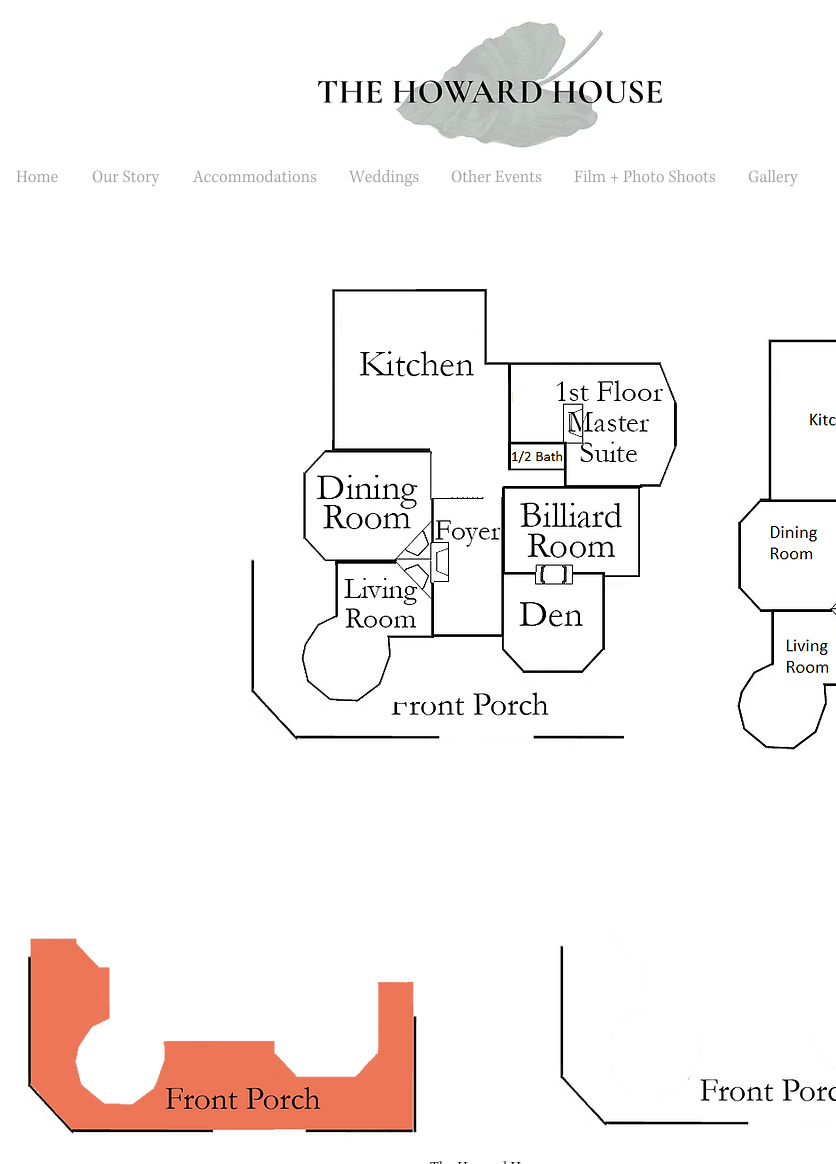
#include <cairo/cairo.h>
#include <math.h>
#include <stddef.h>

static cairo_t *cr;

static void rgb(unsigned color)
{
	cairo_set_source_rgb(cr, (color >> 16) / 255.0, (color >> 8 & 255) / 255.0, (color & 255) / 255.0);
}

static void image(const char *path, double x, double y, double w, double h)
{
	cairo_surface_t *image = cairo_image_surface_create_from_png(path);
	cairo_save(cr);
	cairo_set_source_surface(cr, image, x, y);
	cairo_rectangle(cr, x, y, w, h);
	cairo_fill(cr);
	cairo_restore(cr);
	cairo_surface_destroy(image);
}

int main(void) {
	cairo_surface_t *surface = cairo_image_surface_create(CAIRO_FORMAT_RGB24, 836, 1164);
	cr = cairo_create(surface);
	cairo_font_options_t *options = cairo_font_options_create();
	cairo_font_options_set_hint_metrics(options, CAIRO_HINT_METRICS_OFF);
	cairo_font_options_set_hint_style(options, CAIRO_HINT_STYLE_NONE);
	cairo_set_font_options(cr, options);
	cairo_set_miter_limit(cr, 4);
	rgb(0xffffff);
	cairo_paint(cr);
	image("img/1.png", 318, 21, 344, 127);
	image("img/2.png", 16, 170, 42, 13);
	image("img/3.png", 92, 170, 68, 17);
	image("img/4.png", 192, 170, 125, 13);
	image("img/5.png", 349, 170, 70, 17);
	image("img/6.png", 451, 170, 91, 13);
	image("img/7.png", 574, 170, 141, 13);
	image("img/8.png", 748, 170, 50, 17);
	image("img/15.png", 246, 546, 378, 200);
	image("img/12.png", 303, 450, 131, 111);
	image("img/9.png", 332, 289, 181, 162);
	image("img/11.png", 624, 337, 212, 414);
	image("img/10.png", 508, 362, 169, 126);
	image("img/13.png", 432, 497, 70, 140);
	image("img/14.png", 502, 486, 138, 91);
	image("img/16.png", 301, 561, 133, 141);
	image("img/17.png", 502, 572, 103, 101);
	image("img/18.png", 23, 938, 396, 200);
	image("img/19.png", 555, 932, 281, 195);
	image("img/20.png", 430, 1161, 91, 3);
	cairo_surface_write_to_png(surface, "page.png");
	cairo_font_options_destroy(options);
	cairo_destroy(cr);
	cairo_surface_destroy(surface);
	return 0;
}
